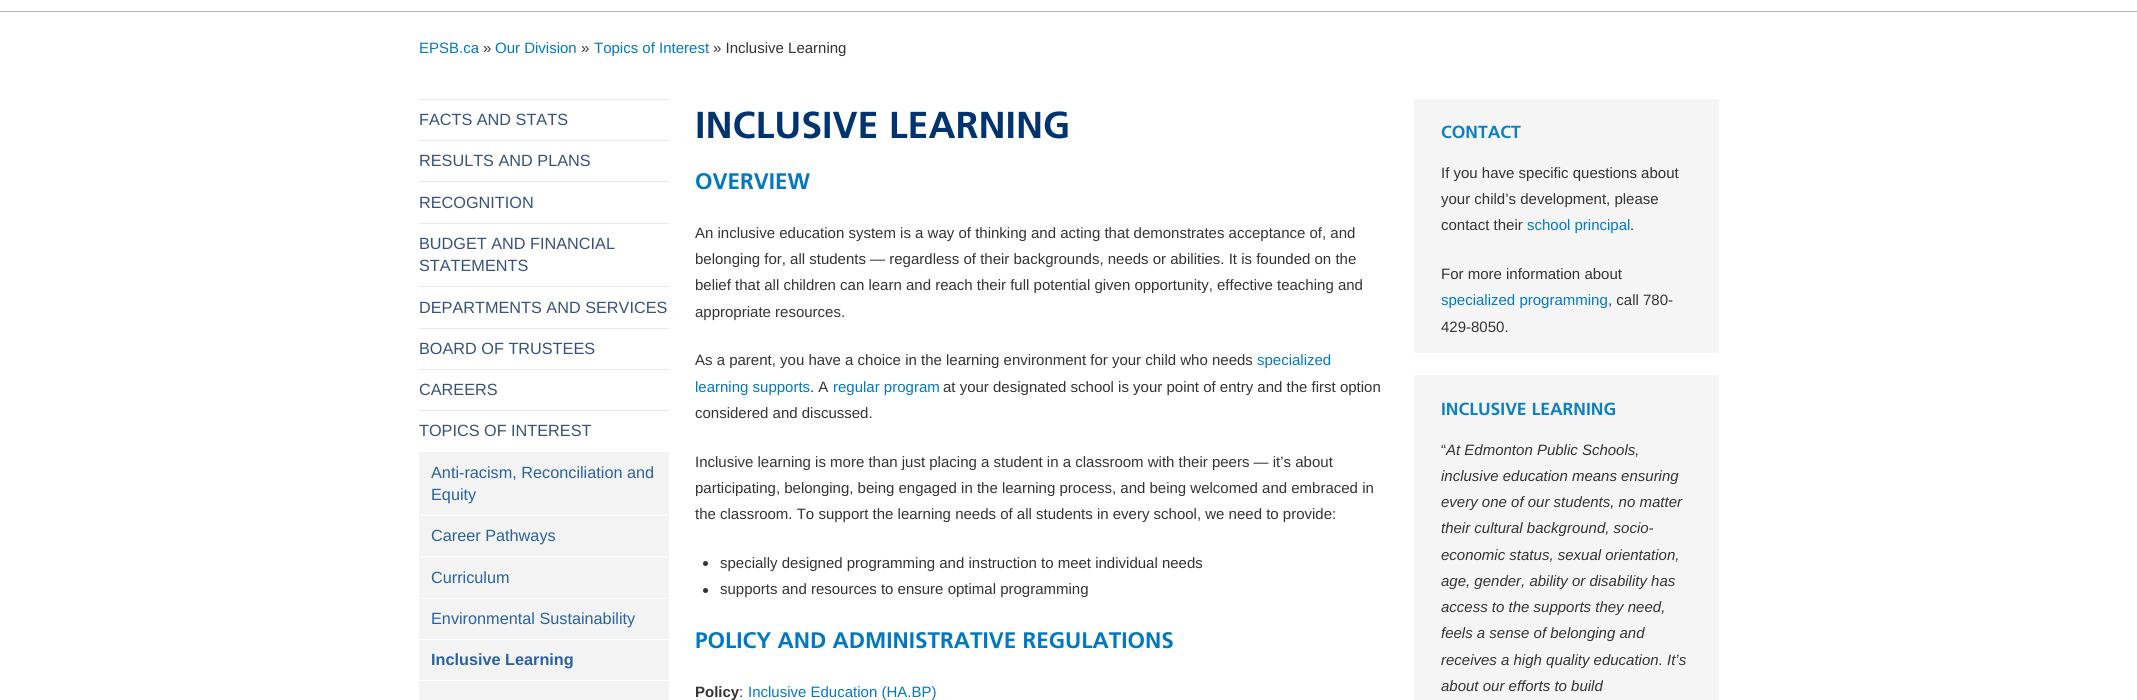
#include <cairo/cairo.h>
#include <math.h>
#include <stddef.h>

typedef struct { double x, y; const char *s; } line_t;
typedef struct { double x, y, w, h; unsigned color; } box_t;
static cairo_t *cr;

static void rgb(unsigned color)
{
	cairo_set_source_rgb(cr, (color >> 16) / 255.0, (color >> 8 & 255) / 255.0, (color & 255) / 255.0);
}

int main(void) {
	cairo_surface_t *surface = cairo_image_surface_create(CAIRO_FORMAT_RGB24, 2137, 700);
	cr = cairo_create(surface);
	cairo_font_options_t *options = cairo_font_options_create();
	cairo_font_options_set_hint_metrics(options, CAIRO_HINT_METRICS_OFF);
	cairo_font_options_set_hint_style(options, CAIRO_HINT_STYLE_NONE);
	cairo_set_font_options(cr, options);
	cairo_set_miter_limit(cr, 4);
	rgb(0xffffff);
	cairo_paint(cr);
	{
		static const box_t items[] = {
			{0, 11, 2137, 1, 0xafafaf},
			{406, 11, 94, 1, 0xffffff},
			{406, 11, 94, 1, 0xafafaf},
			{501, 11, 139, 1, 0xffffff},
			{501, 11, 139, 1, 0xafafaf},
			{641, 11, 112, 1, 0xffffff},
			{641, 11, 112, 1, 0xafafaf},
			{754, 11, 125, 1, 0xffffff},
			{754, 11, 125, 1, 0xafafaf},
			{880, 11, 191, 1, 0xffffff},
			{880, 11, 191, 1, 0xafafaf},
			{1073, 11, 67, 1, 0xffffff},
			{1073, 11, 67, 1, 0xafafaf},
			{1141, 11, 94, 1, 0xffffff},
			{1141, 11, 94, 1, 0xafafaf},
			{419, 99, 250, 1, 0xe9e9e9},
			{419, 140, 250, 1, 0xe9e9e9},
			{419, 181, 250, 1, 0xe9e9e9},
			{419, 223, 250, 1, 0xe9e9e9},
			{419, 286, 250, 1, 0xe9e9e9},
			{419, 328, 250, 1, 0xe9e9e9},
			{419, 369, 250, 1, 0xe9e9e9},
			{419, 410, 250, 1, 0xe9e9e9},
			{419, 452, 250, 63, 0xf3f3f3},
			{419, 516, 250, 40, 0xf3f3f3},
			{419, 557, 250, 41, 0xf3f3f3},
			{419, 599, 250, 40, 0xf3f3f3},
			{419, 640, 250, 40, 0xf3f3f3},
			{419, 681, 250, 19, 0xf3f3f3},
		};
		for (size_t i = 0; i < sizeof items / sizeof *items; i++) {
			rgb(items[i].color);
			cairo_rectangle(cr, items[i].x, items[i].y, items[i].w, items[i].h);
			cairo_fill(cr);
		}
	}
	rgb(0x333333);
	cairo_arc(cr, 705.5, 563.5, 2.5, 0, 2 * M_PI);
	cairo_fill(cr);
	cairo_arc(cr, 705.5, 590.5, 2.5, 0, 2 * M_PI);
	cairo_fill(cr);
	rgb(0xf5f5f5);
	cairo_rectangle(cr, 1414, 99, 305, 254);
	cairo_fill(cr);
	cairo_rectangle(cr, 1414, 375, 305, 325);
	cairo_fill(cr);
	cairo_select_font_face(cr, "Liberation Sans", CAIRO_FONT_SLANT_NORMAL, CAIRO_FONT_WEIGHT_NORMAL);
	cairo_set_font_size(cr, 15);
	rgb(0x0079c2);
	cairo_move_to(cr, 419, 53);
	cairo_show_text(cr, "EPSB.ca");
	rgb(0x333333);
	cairo_move_to(cr, 483, 53);
	cairo_show_text(cr, "»");
	rgb(0x0079c2);
	cairo_move_to(cr, 495, 53);
	cairo_show_text(cr, "Our Division");
	rgb(0x333333);
	cairo_move_to(cr, 581, 53);
	cairo_show_text(cr, "»");
	rgb(0x0079c2);
	cairo_move_to(cr, 594, 53);
	cairo_show_text(cr, "Topics of Interest");
	rgb(0x333333);
	cairo_move_to(cr, 713, 53);
	cairo_show_text(cr, "» Inclusive Learning");
	cairo_set_font_size(cr, 16.25);
	rgb(0x37517d);
	{
		static const line_t items[] = {
			{419, 125, "FACTS AND STATS"},
			{419, 166, "RESULTS AND PLANS"},
			{419, 208, "RECOGNITION"},
			{419, 249, "BUDGET AND FINANCIAL"},
			{419, 271, "STATEMENTS"},
			{419, 313, "DEPARTMENTS AND SERVICES"},
			{419, 354, "BOARD OF TRUSTEES"},
			{419, 395, "CAREERS"},
			{419, 436, "TOPICS OF INTEREST"},
		};
		for (size_t i = 0; i < sizeof items / sizeof *items; i++) {
			cairo_move_to(cr, items[i].x, items[i].y);
			cairo_show_text(cr, items[i].s);
		}
	}
	rgb(0x2a61a1);
	{
		static const line_t items[] = {
			{431, 478, "Anti-racism, Reconciliation and"},
			{431, 500, "Equity"},
			{431, 541, "Career Pathways"},
			{431, 583, "Curriculum"},
			{431, 624, "Environmental Sustainability"},
		};
		for (size_t i = 0; i < sizeof items / sizeof *items; i++) {
			cairo_move_to(cr, items[i].x, items[i].y);
			cairo_show_text(cr, items[i].s);
		}
	}
	cairo_select_font_face(cr, "Liberation Sans", CAIRO_FONT_SLANT_NORMAL, CAIRO_FONT_WEIGHT_BOLD);
	cairo_move_to(cr, 431, 665);
	cairo_show_text(cr, "Inclusive Learning");
	cairo_select_font_face(cr, "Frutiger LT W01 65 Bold", CAIRO_FONT_SLANT_NORMAL, CAIRO_FONT_WEIGHT_BOLD);
	cairo_set_font_size(cr, 37.5);
	rgb(0x003471);
	cairo_move_to(cr, 695, 138);
	cairo_show_text(cr, "INCLUSIVE LEARNING");
	cairo_set_font_size(cr, 22.5);
	rgb(0x0079c2);
	cairo_move_to(cr, 695, 189);
	cairo_show_text(cr, "OVERVIEW");
	cairo_select_font_face(cr, "Liberation Sans", CAIRO_FONT_SLANT_NORMAL, CAIRO_FONT_WEIGHT_NORMAL);
	cairo_set_font_size(cr, 15);
	rgb(0x333333);
	{
		static const line_t items[] = {
			{695, 238, "An inclusive education system is a way of thinking and acting that demonstrates acceptance of, and"},
			{695, 264, "belonging for, all students — regardless of their backgrounds, needs or abilities. It is founded on the"},
			{695, 290, "belief that all children can learn and reach their full potential given opportunity, effective teaching and"},
			{695, 317, "appropriate resources."},
			{695, 365, "As a parent, you have a choice in the learning environment for your child who needs"},
		};
		for (size_t i = 0; i < sizeof items / sizeof *items; i++) {
			cairo_move_to(cr, items[i].x, items[i].y);
			cairo_show_text(cr, items[i].s);
		}
	}
	rgb(0x0079c2);
	cairo_move_to(cr, 1257, 365);
	cairo_show_text(cr, "specialized");
	cairo_move_to(cr, 695, 392);
	cairo_show_text(cr, "learning supports");
	rgb(0x333333);
	cairo_move_to(cr, 810, 392);
	cairo_show_text(cr, ". A");
	rgb(0x0079c2);
	cairo_move_to(cr, 833, 392);
	cairo_show_text(cr, "regular program");
	rgb(0x333333);
	{
		static const line_t items[] = {
			{943, 392, "at your designated school is your point of entry and the first option"},
			{695, 418, "considered and discussed."},
			{695, 467, "Inclusive learning is more than just placing a student in a classroom with their peers — it’s about"},
			{695, 493, "participating, belonging, being engaged in the learning process, and being welcomed and embraced in"},
			{695, 519, "the classroom. To support the learning needs of all students in every school, we need to provide:"},
			{720, 568, "specially designed programming and instruction to meet individual needs"},
			{720, 594, "supports and resources to ensure optimal programming"},
		};
		for (size_t i = 0; i < sizeof items / sizeof *items; i++) {
			cairo_move_to(cr, items[i].x, items[i].y);
			cairo_show_text(cr, items[i].s);
		}
	}
	cairo_select_font_face(cr, "Frutiger LT W01 65 Bold", CAIRO_FONT_SLANT_NORMAL, CAIRO_FONT_WEIGHT_BOLD);
	cairo_set_font_size(cr, 22.5);
	rgb(0x0079c2);
	cairo_move_to(cr, 695, 648);
	cairo_show_text(cr, "POLICY AND ADMINISTRATIVE REGULATIONS");
	cairo_select_font_face(cr, "Liberation Sans", CAIRO_FONT_SLANT_NORMAL, CAIRO_FONT_WEIGHT_BOLD);
	cairo_set_font_size(cr, 15);
	rgb(0x333333);
	cairo_move_to(cr, 695, 697);
	cairo_show_text(cr, "Policy");
	cairo_select_font_face(cr, "Liberation Sans", CAIRO_FONT_SLANT_NORMAL, CAIRO_FONT_WEIGHT_NORMAL);
	cairo_move_to(cr, 739, 697);
	cairo_show_text(cr, ":");
	rgb(0x0079c2);
	cairo_move_to(cr, 748, 697);
	cairo_show_text(cr, "Inclusive Education (HA.BP)");
	cairo_select_font_face(cr, "Frutiger LT W01 65 Bold", CAIRO_FONT_SLANT_NORMAL, CAIRO_FONT_WEIGHT_BOLD);
	cairo_set_font_size(cr, 17.5);
	rgb(0x0d80c5);
	cairo_move_to(cr, 1441, 138);
	cairo_show_text(cr, "CONTACT");
	cairo_select_font_face(cr, "Liberation Sans", CAIRO_FONT_SLANT_NORMAL, CAIRO_FONT_WEIGHT_NORMAL);
	cairo_set_font_size(cr, 15);
	rgb(0x333333);
	{
		static const line_t items[] = {
			{1441, 178, "If you have specific questions about"},
			{1441, 204, "your child’s development, please"},
			{1441, 230, "contact their"},
		};
		for (size_t i = 0; i < sizeof items / sizeof *items; i++) {
			cairo_move_to(cr, items[i].x, items[i].y);
			cairo_show_text(cr, items[i].s);
		}
	}
	rgb(0x0079c2);
	cairo_move_to(cr, 1527, 230);
	cairo_show_text(cr, "school principal");
	rgb(0x333333);
	cairo_move_to(cr, 1630, 230);
	cairo_show_text(cr, ".");
	cairo_move_to(cr, 1441, 279);
	cairo_show_text(cr, "For more information about");
	rgb(0x0079c2);
	cairo_move_to(cr, 1441, 305);
	cairo_show_text(cr, "specialized programming");
	rgb(0x333333);
	cairo_move_to(cr, 1608, 305);
	cairo_show_text(cr, ", call 780-");
	cairo_move_to(cr, 1441, 332);
	cairo_show_text(cr, "429-8050.");
	cairo_select_font_face(cr, "Frutiger LT W01 65 Bold", CAIRO_FONT_SLANT_NORMAL, CAIRO_FONT_WEIGHT_BOLD);
	cairo_set_font_size(cr, 17.5);
	rgb(0x0d80c5);
	cairo_move_to(cr, 1441, 415);
	cairo_show_text(cr, "INCLUSIVE LEARNING");
	cairo_select_font_face(cr, "Liberation Sans", CAIRO_FONT_SLANT_NORMAL, CAIRO_FONT_WEIGHT_NORMAL);
	cairo_set_font_size(cr, 15);
	rgb(0x333333);
	cairo_move_to(cr, 1441, 455);
	cairo_show_text(cr, "“");
	cairo_select_font_face(cr, "Liberation Sans", CAIRO_FONT_SLANT_ITALIC, CAIRO_FONT_WEIGHT_NORMAL);
	{
		static const line_t items[] = {
			{1446, 455, "At Edmonton Public Schools,"},
			{1441, 481, "inclusive education means ensuring"},
			{1441, 507, "every one of our students, no matter"},
			{1441, 533, "their cultural background, socio-"},
			{1441, 560, "economic status, sexual orientation,"},
			{1441, 586, "age, gender, ability or disability has"},
			{1441, 612, "access to the supports they need,"},
			{1441, 638, "feels a sense of belonging and"},
			{1441, 665, "receives a high quality education. It’s"},
			{1441, 691, "about our efforts to build"},
		};
		for (size_t i = 0; i < sizeof items / sizeof *items; i++) {
			cairo_move_to(cr, items[i].x, items[i].y);
			cairo_show_text(cr, items[i].s);
		}
	}
	cairo_surface_write_to_png(surface, "page.png");
	cairo_font_options_destroy(options);
	cairo_destroy(cr);
	cairo_surface_destroy(surface);
	return 0;
}
